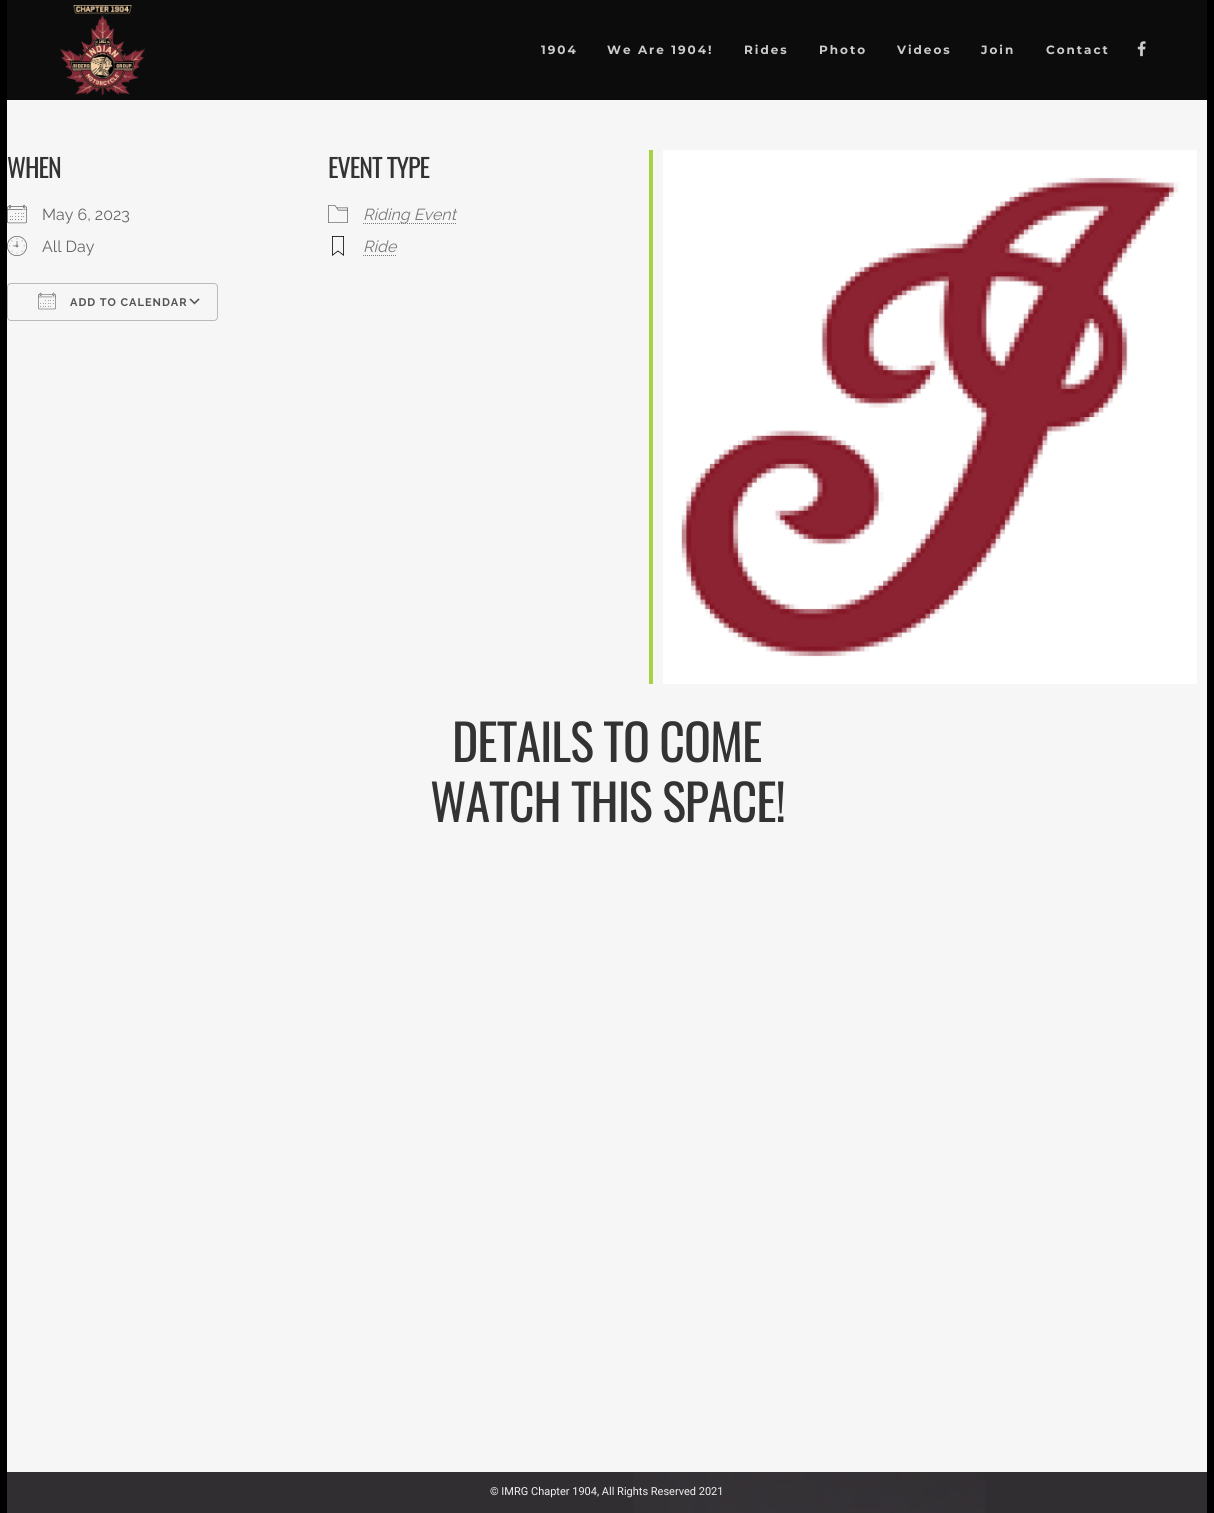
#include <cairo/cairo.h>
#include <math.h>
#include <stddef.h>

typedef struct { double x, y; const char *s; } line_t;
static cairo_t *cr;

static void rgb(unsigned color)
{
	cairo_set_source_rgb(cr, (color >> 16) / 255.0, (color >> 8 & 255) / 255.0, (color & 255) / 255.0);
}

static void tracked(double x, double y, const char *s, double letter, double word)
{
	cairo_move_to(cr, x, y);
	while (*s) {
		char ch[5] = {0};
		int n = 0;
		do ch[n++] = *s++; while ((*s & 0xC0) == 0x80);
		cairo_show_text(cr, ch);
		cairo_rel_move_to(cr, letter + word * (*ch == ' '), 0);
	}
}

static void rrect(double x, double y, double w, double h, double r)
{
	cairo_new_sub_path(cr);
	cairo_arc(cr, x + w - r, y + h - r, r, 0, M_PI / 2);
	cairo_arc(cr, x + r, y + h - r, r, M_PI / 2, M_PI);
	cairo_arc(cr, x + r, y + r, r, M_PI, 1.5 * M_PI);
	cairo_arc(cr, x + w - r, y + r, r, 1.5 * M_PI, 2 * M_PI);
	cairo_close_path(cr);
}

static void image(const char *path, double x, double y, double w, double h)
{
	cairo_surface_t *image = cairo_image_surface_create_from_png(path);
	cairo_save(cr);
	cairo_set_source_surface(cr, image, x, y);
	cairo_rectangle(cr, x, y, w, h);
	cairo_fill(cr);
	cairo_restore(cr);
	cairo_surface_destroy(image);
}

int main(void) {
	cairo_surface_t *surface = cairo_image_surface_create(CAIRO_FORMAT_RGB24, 1214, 1513);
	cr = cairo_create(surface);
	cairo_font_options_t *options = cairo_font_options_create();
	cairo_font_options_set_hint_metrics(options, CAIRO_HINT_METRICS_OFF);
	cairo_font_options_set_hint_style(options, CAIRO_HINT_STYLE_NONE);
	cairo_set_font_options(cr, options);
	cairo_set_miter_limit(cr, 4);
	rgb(0x000000);
	cairo_paint(cr);
	rgb(0x0c0c0c);
	cairo_rectangle(cr, 7, 0, 1200, 100);
	cairo_fill(cr);
	image("img/1.png", 60, 5, 85, 90);
	image("img/2.png", 1137, 41, 9, 16);
	rgb(0xf6f6f6);
	cairo_rectangle(cr, 7, 100, 1200, 1372);
	cairo_fill(cr);
	image("img/3.png", 7, 204, 20, 20);
	image("img/4.png", 7, 236, 20, 20);
	image("img/5.png", 189, 298, 11, 7);
	rrect(7.5, 283.5, 210, 37, 3.5);
	rgb(0xbababa);
	cairo_set_line_width(cr, 1);
	cairo_stroke(cr);
	image("img/6.png", 38, 292, 18, 18);
	image("img/7.png", 328, 205, 20, 18);
	cairo_new_path(cr);
	cairo_move_to(cr, 363, 223.5);
	cairo_line_to(cr, 456, 223.5);
	rgb(0x787878);
	cairo_set_dash(cr, (double[]){1, 1}, 2, 0);
	cairo_stroke(cr);
	image("img/8.png", 332, 236, 12, 20);
	cairo_new_path(cr);
	cairo_move_to(cr, 363, 255.5);
	cairo_line_to(cr, 396.5, 255.5);
	cairo_stroke(cr);
	rgb(0xa8d144);
	cairo_rectangle(cr, 649, 150, 4, 534);
	cairo_fill(cr);
	image("img/9.png", 663, 150, 534, 534);
	rgb(0x312e31);
	cairo_rectangle(cr, 7, 1472, 1200, 41);
	cairo_fill(cr);
	image("img/10.png", 633, 1472, 352, 41);
	cairo_select_font_face(cr, "Montserrat", CAIRO_FONT_SLANT_NORMAL, CAIRO_FONT_WEIGHT_BOLD);
	cairo_set_font_size(cr, 12);
	rgb(0xcccccc);
	{
		static const line_t items[] = {
			{541, 54, "1904"},
			{607, 54, "We Are 1904!"},
			{744, 54, "Rides"},
			{819, 54, "Photo"},
			{897, 54, "Videos"},
			{981, 54, "Join"},
			{1046, 54, "Contact"},
		};
		for (size_t i = 0; i < sizeof items / sizeof *items; i++) {
			tracked(items[i].x, items[i].y, items[i].s, 2, 0);
		}
	}
	cairo_select_font_face(cr, "Oswald", CAIRO_FONT_SLANT_NORMAL, CAIRO_FONT_WEIGHT_NORMAL);
	cairo_set_font_size(cr, 26);
	rgb(0x333333);
	tracked(7, 178, "WHEN", -1, 0);
	cairo_select_font_face(cr, "Raleway", CAIRO_FONT_SLANT_NORMAL, CAIRO_FONT_WEIGHT_NORMAL);
	cairo_set_font_size(cr, 16);
	rgb(0x666666);
	cairo_move_to(cr, 42, 220);
	cairo_show_text(cr, "May 6, 2023");
	cairo_move_to(cr, 42, 252);
	cairo_show_text(cr, "All Day");
	cairo_select_font_face(cr, "Raleway", CAIRO_FONT_SLANT_NORMAL, CAIRO_FONT_WEIGHT_BOLD);
	cairo_set_font_size(cr, 11);
	rgb(0x545454);
	tracked(70, 306, "ADD TO CALENDAR", 1, 0);
	cairo_select_font_face(cr, "Oswald", CAIRO_FONT_SLANT_NORMAL, CAIRO_FONT_WEIGHT_NORMAL);
	cairo_set_font_size(cr, 26);
	rgb(0x333333);
	tracked(328, 178, "EVENT TYPE", -1, 0);
	cairo_select_font_face(cr, "Raleway", CAIRO_FONT_SLANT_ITALIC, CAIRO_FONT_WEIGHT_NORMAL);
	cairo_set_font_size(cr, 16);
	rgb(0x787878);
	cairo_move_to(cr, 363, 220);
	cairo_show_text(cr, "Riding Event");
	cairo_move_to(cr, 363, 252);
	cairo_show_text(cr, "Ride");
	cairo_select_font_face(cr, "Oswald", CAIRO_FONT_SLANT_NORMAL, CAIRO_FONT_WEIGHT_NORMAL);
	cairo_set_font_size(cr, 50);
	rgb(0x333333);
	tracked(452, 762, "DETAILS TO COME", -1, 0);
	tracked(430, 822, "WATCH THIS SPACE!", -1, 0);
	cairo_select_font_face(cr, "Roboto", CAIRO_FONT_SLANT_NORMAL, CAIRO_FONT_WEIGHT_NORMAL);
	cairo_set_font_size(cr, 11);
	rgb(0xf1f1f1);
	cairo_move_to(cr, 490, 1495);
	cairo_show_text(cr, "© IMRG Chapter 1904, All Rights Reserved 2021");
	cairo_surface_write_to_png(surface, "page.png");
	cairo_font_options_destroy(options);
	cairo_destroy(cr);
	cairo_surface_destroy(surface);
	return 0;
}
